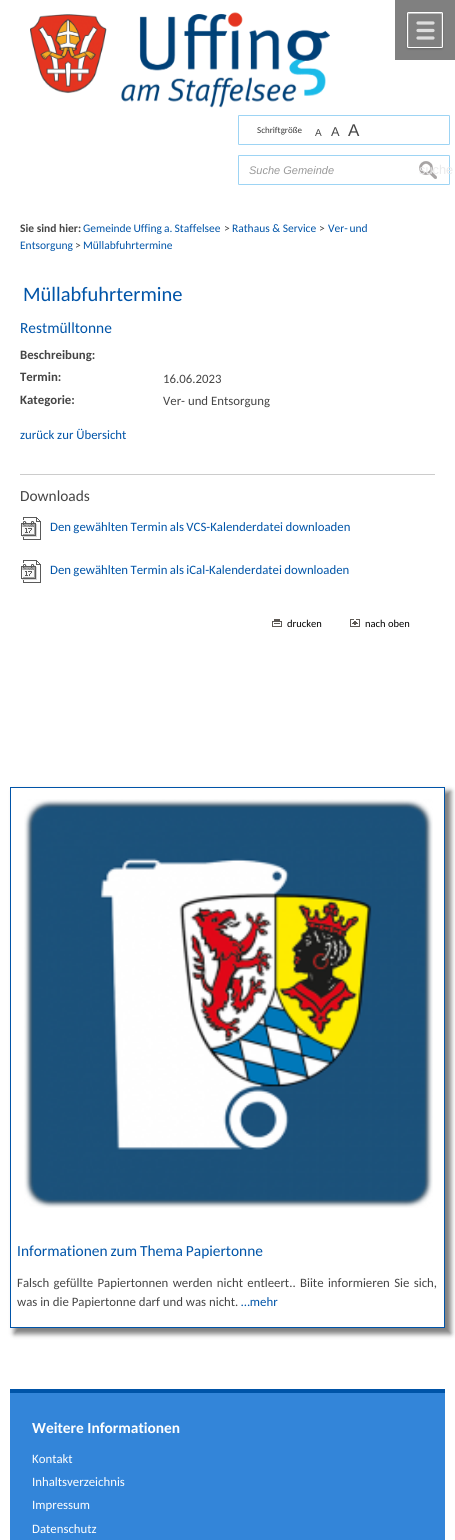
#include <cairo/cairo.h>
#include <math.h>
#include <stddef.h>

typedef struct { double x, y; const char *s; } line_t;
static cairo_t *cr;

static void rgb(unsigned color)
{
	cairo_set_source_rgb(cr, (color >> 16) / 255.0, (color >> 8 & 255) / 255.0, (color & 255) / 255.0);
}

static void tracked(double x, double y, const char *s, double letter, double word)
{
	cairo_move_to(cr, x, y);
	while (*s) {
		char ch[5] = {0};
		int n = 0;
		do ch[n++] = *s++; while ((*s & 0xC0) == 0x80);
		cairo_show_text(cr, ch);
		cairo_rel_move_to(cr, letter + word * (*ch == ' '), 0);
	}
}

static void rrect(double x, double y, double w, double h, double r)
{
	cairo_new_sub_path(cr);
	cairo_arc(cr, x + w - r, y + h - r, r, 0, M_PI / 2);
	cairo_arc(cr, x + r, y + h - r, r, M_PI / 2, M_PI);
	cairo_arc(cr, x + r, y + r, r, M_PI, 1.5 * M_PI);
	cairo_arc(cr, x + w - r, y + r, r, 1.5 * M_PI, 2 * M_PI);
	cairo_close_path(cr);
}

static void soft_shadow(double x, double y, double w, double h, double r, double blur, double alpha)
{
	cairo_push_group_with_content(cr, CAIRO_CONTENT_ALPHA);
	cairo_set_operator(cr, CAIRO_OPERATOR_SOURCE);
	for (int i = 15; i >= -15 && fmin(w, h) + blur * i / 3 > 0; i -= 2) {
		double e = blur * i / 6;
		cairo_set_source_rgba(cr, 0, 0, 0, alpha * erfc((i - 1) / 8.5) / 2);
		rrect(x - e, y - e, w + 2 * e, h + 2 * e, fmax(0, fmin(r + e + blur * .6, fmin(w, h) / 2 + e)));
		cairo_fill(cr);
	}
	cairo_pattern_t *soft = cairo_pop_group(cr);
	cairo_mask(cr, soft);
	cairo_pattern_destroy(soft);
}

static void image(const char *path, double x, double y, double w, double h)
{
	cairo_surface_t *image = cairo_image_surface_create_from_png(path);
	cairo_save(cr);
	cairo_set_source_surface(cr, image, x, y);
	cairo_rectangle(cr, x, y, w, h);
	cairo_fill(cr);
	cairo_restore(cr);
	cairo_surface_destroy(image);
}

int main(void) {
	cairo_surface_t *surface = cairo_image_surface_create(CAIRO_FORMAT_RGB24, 455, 1540);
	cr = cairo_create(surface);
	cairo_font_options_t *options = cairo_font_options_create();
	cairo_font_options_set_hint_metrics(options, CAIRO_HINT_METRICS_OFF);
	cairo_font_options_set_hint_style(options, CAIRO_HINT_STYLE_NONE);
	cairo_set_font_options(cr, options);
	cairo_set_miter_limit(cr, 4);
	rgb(0xffffff);
	cairo_paint(cr);
	image("img/1.png", 30, 12, 300, 96);
	rgb(0x808080);
	cairo_rectangle(cr, 395, 0, 60, 60);
	cairo_fill(cr);
	cairo_save(cr);
	cairo_set_fill_rule(cr, CAIRO_FILL_RULE_EVEN_ODD);
	cairo_new_path(cr);
	cairo_move_to(cr, 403, 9);
	cairo_line_to(cr, 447, 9);
	cairo_line_to(cr, 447, 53);
	cairo_line_to(cr, 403, 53);
	cairo_close_path(cr);
	cairo_move_to(cr, 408.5, 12);
	cairo_line_to(cr, 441.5, 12);
	cairo_curve_to(cr, 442.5, 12, 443, 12.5, 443, 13.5);
	cairo_line_to(cr, 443, 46.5);
	cairo_curve_to(cr, 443, 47.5, 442.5, 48, 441.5, 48);
	cairo_line_to(cr, 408.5, 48);
	cairo_curve_to(cr, 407.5, 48, 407, 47.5, 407, 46.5);
	cairo_line_to(cr, 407, 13.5);
	cairo_curve_to(cr, 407, 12.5, 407.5, 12, 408.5, 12);
	cairo_close_path(cr);
	cairo_clip(cr);
	rgb(0x000000);
	soft_shadow(407, 13, 36, 36, 1.5, 1, 0.2);
	cairo_restore(cr);
	cairo_new_path(cr);
	cairo_move_to(cr, 418, 23);
	cairo_line_to(cr, 433, 23);
	cairo_move_to(cr, 418, 30.5);
	cairo_line_to(cr, 433, 30.5);
	cairo_move_to(cr, 418, 38);
	cairo_line_to(cr, 433, 38);
	rgb(0xdddddd);
	cairo_set_line_width(cr, 3.2);
	cairo_set_line_cap(cr, CAIRO_LINE_CAP_ROUND);
	cairo_stroke(cr);
	rgb(0xc0c0c0);
	cairo_new_path(cr);
	cairo_move_to(cr, 409, 14);
	cairo_line_to(cr, 441, 14);
	cairo_line_to(cr, 442, 14.5);
	cairo_curve_to(cr, 442, 11.5, 439.5, 13, 436, 13);
	cairo_line_to(cr, 414, 13);
	cairo_curve_to(cr, 410.5, 13, 408, 11.5, 408, 14.5);
	cairo_close_path(cr);
	cairo_fill(cr);
	cairo_set_source_rgba(cr, 1, 1, 1, 0.2);
	cairo_new_path(cr);
	cairo_move_to(cr, 440.5, 47);
	cairo_curve_to(cr, 443.5, 47, 442, 44.5, 442, 41);
	cairo_line_to(cr, 442, 19);
	cairo_curve_to(cr, 442, 15.5, 443.5, 13, 440.5, 13);
	cairo_curve_to(cr, 441.5, 14, 441.5, 46, 440.5, 47);
	cairo_close_path(cr);
	cairo_move_to(cr, 408.5, 13);
	cairo_line_to(cr, 408, 13.5);
	cairo_line_to(cr, 408, 41);
	cairo_curve_to(cr, 408, 44.5, 406.5, 47, 409.5, 47);
	cairo_curve_to(cr, 408.5, 46, 408.5, 14, 409.5, 13);
	cairo_close_path(cr);
	cairo_fill(cr);
	rrect(407.5, 12.5, 35, 35, 1);
	rgb(0xffffff);
	cairo_set_line_width(cr, 1);
	cairo_set_line_cap(cr, CAIRO_LINE_CAP_BUTT);
	cairo_stroke(cr);
	rrect(238.5, 115.5, 211, 29, 0.5);
	rgb(0x9dd4f4);
	cairo_stroke(cr);
	rrect(238.5, 155.5, 211, 29, 0.5);
	cairo_stroke(cr);
	image("img/2.png", 419, 161, 18, 18);
	rgb(0xcccccc);
	cairo_rectangle(cr, 20, 474, 415, 1);
	cairo_fill(cr);
	image("img/3.png", 21, 517, 20, 23);
	image("img/3.png", 21, 560, 20, 23);
	image("img/4.png", 272, 619, 10, 8);
	image("img/5.png", 350, 619, 10, 8);
	cairo_save(cr);
	cairo_set_fill_rule(cr, CAIRO_FILL_RULE_EVEN_ODD);
	cairo_new_path(cr);
	cairo_move_to(cr, 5, 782);
	cairo_line_to(cr, 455, 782);
	cairo_line_to(cr, 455, 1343);
	cairo_line_to(cr, 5, 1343);
	cairo_close_path(cr);
	cairo_move_to(cr, 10, 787);
	cairo_line_to(cr, 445, 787);
	cairo_line_to(cr, 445, 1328);
	cairo_line_to(cr, 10, 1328);
	cairo_close_path(cr);
	cairo_clip(cr);
	rgb(0x000000);
	soft_shadow(14, 791, 437, 543, 0, 2.5, 0.5);
	cairo_restore(cr);
	cairo_rectangle(cr, 10.5, 787.5, 434, 540);
	rgb(0x0054a8);
	cairo_stroke(cr);
	image("img/6.png", 24, 799, 409, 409);
	rgb(0x3385d9);
	cairo_rectangle(cr, 10, 1393, 435, 147);
	cairo_fill(cr);
	rgb(0x0054a8);
	cairo_rectangle(cr, 10, 1389, 435, 4);
	cairo_fill(cr);
	cairo_select_font_face(cr, "Carlito", CAIRO_FONT_SLANT_NORMAL, CAIRO_FONT_WEIGHT_NORMAL);
	cairo_set_font_size(cr, 9);
	rgb(0x3a3a3a);
	cairo_move_to(cr, 257, 133);
	cairo_show_text(cr, "Schriftgröße");
	cairo_select_font_face(cr, "Liberation Sans", CAIRO_FONT_SLANT_NORMAL, CAIRO_FONT_WEIGHT_NORMAL);
	cairo_set_font_size(cr, 10);
	rgb(0x454545);
	cairo_move_to(cr, 315, 136);
	cairo_show_text(cr, "A");
	cairo_set_font_size(cr, 12.8);
	cairo_move_to(cr, 331, 136);
	cairo_show_text(cr, "A");
	cairo_set_font_size(cr, 17);
	cairo_move_to(cr, 348, 136);
	cairo_show_text(cr, "A");
	cairo_select_font_face(cr, "Liberation Sans", CAIRO_FONT_SLANT_ITALIC, CAIRO_FONT_WEIGHT_NORMAL);
	cairo_set_font_size(cr, 11);
	rgb(0x999999);
	cairo_move_to(cr, 249, 174);
	cairo_show_text(cr, "Suche Gemeinde");
	cairo_select_font_face(cr, "Liberation Sans", CAIRO_FONT_SLANT_NORMAL, CAIRO_FONT_WEIGHT_NORMAL);
	cairo_set_font_size(cr, 12.8);
	rgb(0xeaeaeb);
	cairo_move_to(cr, 419, 174);
	cairo_show_text(cr, "suche");
	cairo_select_font_face(cr, "Carlito", CAIRO_FONT_SLANT_NORMAL, CAIRO_FONT_WEIGHT_BOLD);
	cairo_set_font_size(cr, 11.5);
	rgb(0x454545);
	cairo_move_to(cr, 20, 232);
	cairo_show_text(cr, "Sie sind hier:");
	cairo_select_font_face(cr, "Carlito", CAIRO_FONT_SLANT_NORMAL, CAIRO_FONT_WEIGHT_NORMAL);
	rgb(0x0054a8);
	tracked(83, 232, "Gemeinde Uffing a. Staffelsee", 0, -0.5);
	rgb(0x454545);
	cairo_move_to(cr, 224, 232);
	cairo_show_text(cr, ">");
	rgb(0x0054a8);
	cairo_move_to(cr, 232, 232);
	cairo_show_text(cr, "Rathaus & Service");
	rgb(0x454545);
	cairo_move_to(cr, 319, 232);
	cairo_show_text(cr, ">");
	rgb(0x0054a8);
	tracked(328, 232, "Ver- und", 0, -1);
	cairo_move_to(cr, 20, 249);
	cairo_show_text(cr, "Entsorgung");
	rgb(0x454545);
	cairo_move_to(cr, 75, 249);
	cairo_show_text(cr, ">");
	rgb(0x0054a8);
	cairo_move_to(cr, 83, 249);
	cairo_show_text(cr, "Müllabfuhrtermine");
	cairo_set_font_size(cr, 20.5);
	cairo_move_to(cr, 23, 301);
	cairo_show_text(cr, "Müllabfuhrtermine");
	cairo_set_font_size(cr, 15.4);
	cairo_move_to(cr, 20, 333);
	cairo_show_text(cr, "Restmülltonne");
	cairo_select_font_face(cr, "Carlito", CAIRO_FONT_SLANT_NORMAL, CAIRO_FONT_WEIGHT_BOLD);
	cairo_set_font_size(cr, 12.8);
	rgb(0x454545);
	cairo_move_to(cr, 20, 359);
	cairo_show_text(cr, "Beschreibung:");
	cairo_move_to(cr, 20, 381);
	cairo_show_text(cr, "Termin:");
	cairo_select_font_face(cr, "Carlito", CAIRO_FONT_SLANT_NORMAL, CAIRO_FONT_WEIGHT_NORMAL);
	cairo_move_to(cr, 163, 383);
	cairo_show_text(cr, "16.06.2023");
	cairo_select_font_face(cr, "Carlito", CAIRO_FONT_SLANT_NORMAL, CAIRO_FONT_WEIGHT_BOLD);
	cairo_move_to(cr, 20, 404);
	cairo_show_text(cr, "Kategorie:");
	cairo_select_font_face(cr, "Carlito", CAIRO_FONT_SLANT_NORMAL, CAIRO_FONT_WEIGHT_NORMAL);
	cairo_move_to(cr, 163, 405);
	cairo_show_text(cr, "Ver- und Entsorgung");
	rgb(0x0054a8);
	cairo_move_to(cr, 20, 439);
	cairo_show_text(cr, "zurück zur Übersicht");
	cairo_set_font_size(cr, 15.4);
	rgb(0x454545);
	cairo_move_to(cr, 20, 501);
	cairo_show_text(cr, "Downloads");
	cairo_set_font_size(cr, 12.8);
	rgb(0x0054a8);
	tracked(50, 531, "Den gewählten Termin als VCS-Kalenderdatei downloaden", 0, -0.5);
	tracked(50, 574, "Den gewählten Termin als iCal-Kalenderdatei downloaden", 0, -0.5);
	cairo_set_font_size(cr, 10.5);
	rgb(0x000000);
	cairo_move_to(cr, 287, 627);
	cairo_show_text(cr, "drucken");
	cairo_move_to(cr, 365, 627);
	cairo_show_text(cr, "nach oben");
	cairo_set_font_size(cr, 15.4);
	rgb(0x0054a8);
	tracked(17, 1256, "Informationen zum Thema Papiertonne", 0, -0.5);
	cairo_set_font_size(cr, 12.8);
	rgb(0x454545);
	tracked(17, 1287, "Falsch gefüllte Papiertonnen werden nicht entleert.. Biite informieren Sie sich,", 0, 1.5);
	cairo_move_to(cr, 17, 1306);
	cairo_show_text(cr, "was in die Papiertonne darf und was nicht.");
	rgb(0x0054a8);
	cairo_move_to(cr, 241, 1306);
	cairo_show_text(cr, "…mehr");
	cairo_select_font_face(cr, "Carlito", CAIRO_FONT_SLANT_NORMAL, CAIRO_FONT_WEIGHT_BOLD);
	cairo_set_font_size(cr, 15.4);
	rgb(0xffffff);
	cairo_move_to(cr, 32, 1433);
	cairo_show_text(cr, "Weitere Informationen");
	cairo_select_font_face(cr, "Carlito", CAIRO_FONT_SLANT_NORMAL, CAIRO_FONT_WEIGHT_NORMAL);
	cairo_set_font_size(cr, 12.8);
	{
		static const line_t items[] = {
			{32, 1463, "Kontakt"},
			{32, 1486, "Inhaltsverzeichnis"},
			{32, 1509, "Impressum"},
			{32, 1533, "Datenschutz"},
		};
		for (size_t i = 0; i < sizeof items / sizeof *items; i++) {
			cairo_move_to(cr, items[i].x, items[i].y);
			cairo_show_text(cr, items[i].s);
		}
	}
	cairo_surface_write_to_png(surface, "page.png");
	cairo_font_options_destroy(options);
	cairo_destroy(cr);
	cairo_surface_destroy(surface);
	return 0;
}
